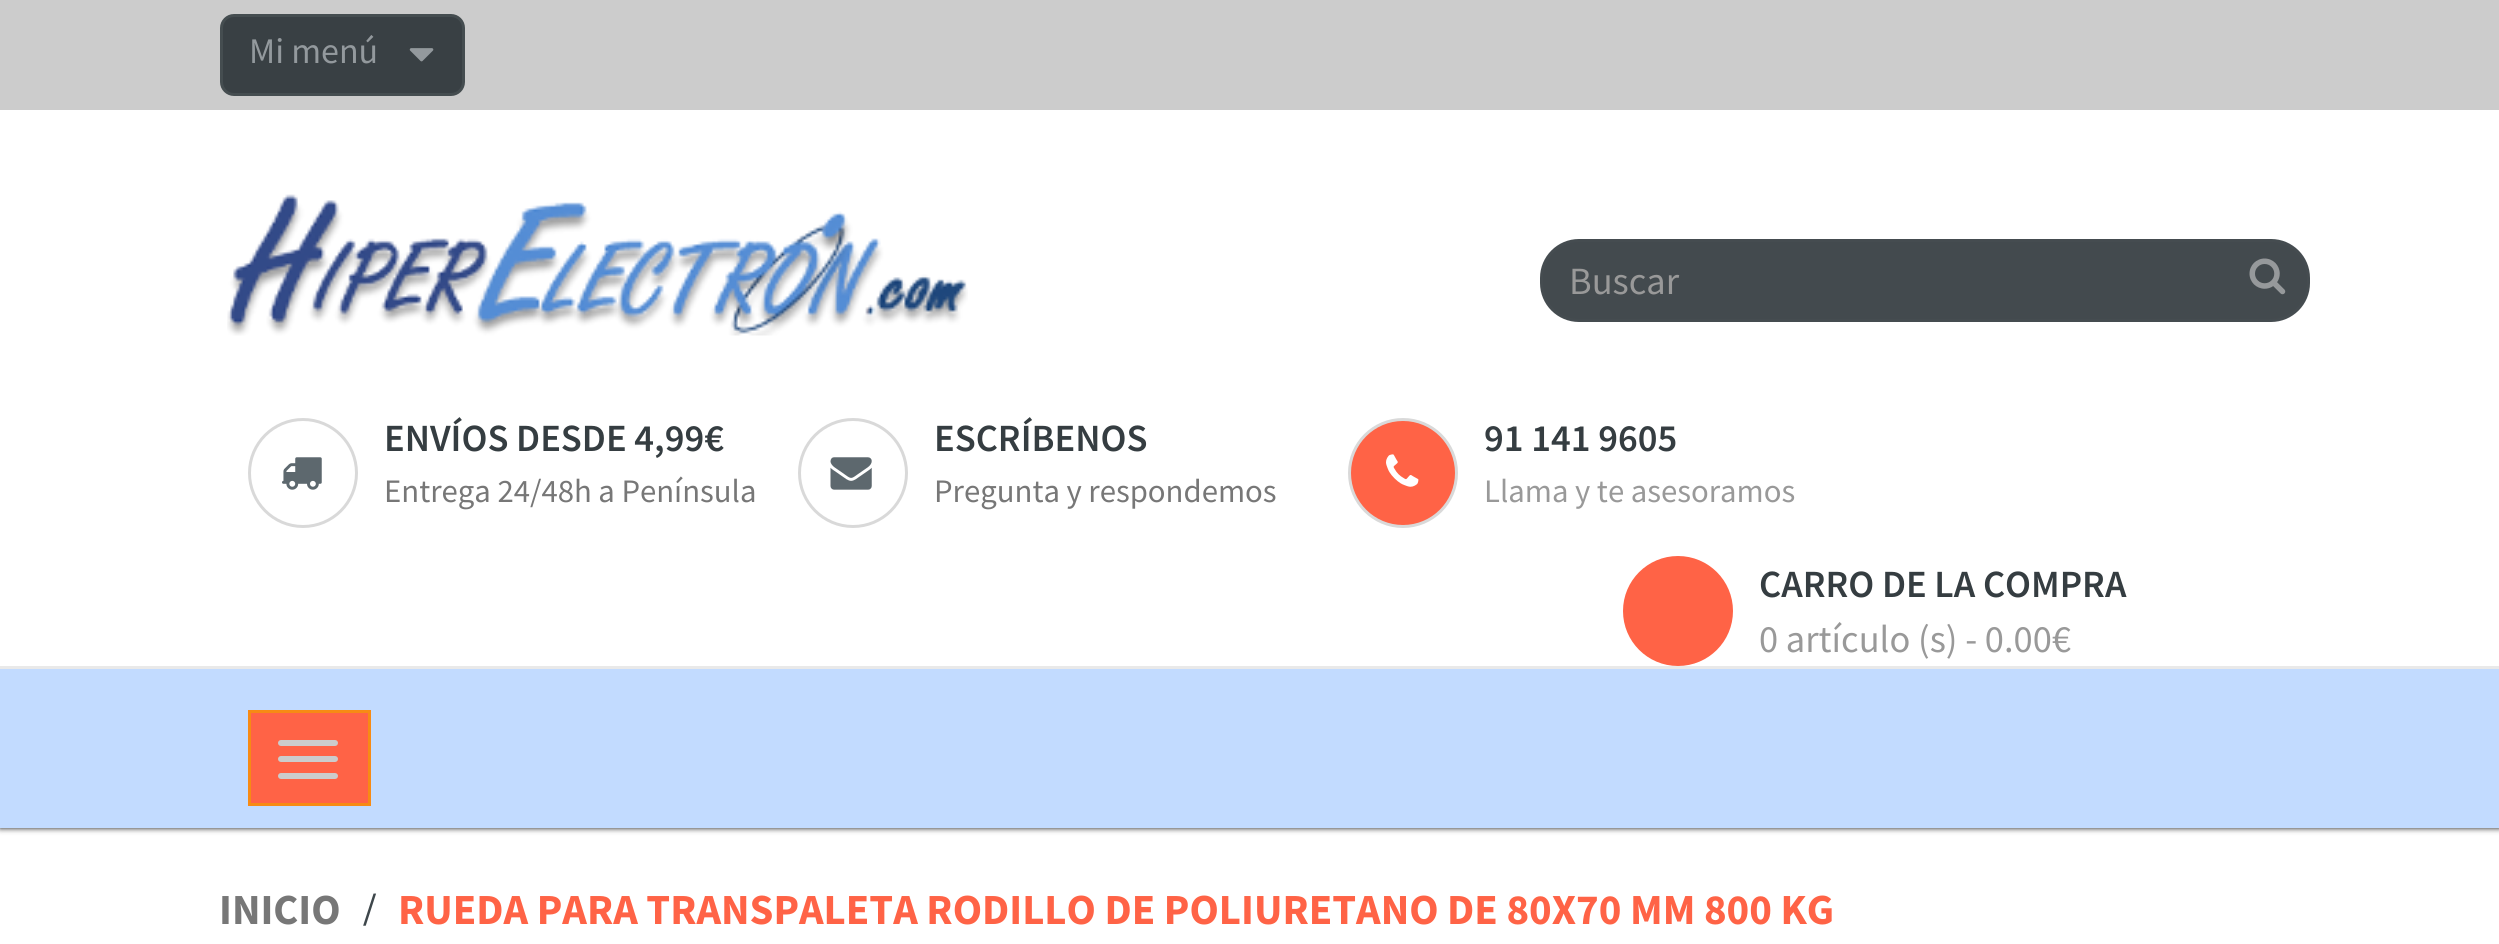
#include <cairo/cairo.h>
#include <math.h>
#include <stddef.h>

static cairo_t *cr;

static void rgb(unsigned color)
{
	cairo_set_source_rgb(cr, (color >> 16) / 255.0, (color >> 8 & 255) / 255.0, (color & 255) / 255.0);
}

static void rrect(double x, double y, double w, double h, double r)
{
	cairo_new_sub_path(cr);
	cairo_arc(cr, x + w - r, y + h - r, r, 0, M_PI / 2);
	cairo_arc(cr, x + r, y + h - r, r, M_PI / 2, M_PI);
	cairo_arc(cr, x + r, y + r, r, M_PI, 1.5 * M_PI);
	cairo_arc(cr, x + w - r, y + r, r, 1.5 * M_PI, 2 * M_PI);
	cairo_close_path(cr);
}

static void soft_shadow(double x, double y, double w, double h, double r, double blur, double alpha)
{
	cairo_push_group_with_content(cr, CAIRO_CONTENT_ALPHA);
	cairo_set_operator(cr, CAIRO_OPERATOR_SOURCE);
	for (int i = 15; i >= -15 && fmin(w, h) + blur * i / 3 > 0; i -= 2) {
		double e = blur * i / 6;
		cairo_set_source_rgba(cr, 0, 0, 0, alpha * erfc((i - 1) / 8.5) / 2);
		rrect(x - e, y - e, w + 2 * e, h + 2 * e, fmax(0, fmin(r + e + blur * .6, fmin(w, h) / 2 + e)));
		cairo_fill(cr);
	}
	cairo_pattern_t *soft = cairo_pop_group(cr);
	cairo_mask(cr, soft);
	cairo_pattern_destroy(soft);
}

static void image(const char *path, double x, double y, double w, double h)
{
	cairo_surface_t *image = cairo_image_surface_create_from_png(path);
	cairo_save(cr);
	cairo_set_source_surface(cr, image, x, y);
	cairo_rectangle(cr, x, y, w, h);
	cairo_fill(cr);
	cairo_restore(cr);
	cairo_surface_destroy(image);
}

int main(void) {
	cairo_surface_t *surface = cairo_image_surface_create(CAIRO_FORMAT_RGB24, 2499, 944);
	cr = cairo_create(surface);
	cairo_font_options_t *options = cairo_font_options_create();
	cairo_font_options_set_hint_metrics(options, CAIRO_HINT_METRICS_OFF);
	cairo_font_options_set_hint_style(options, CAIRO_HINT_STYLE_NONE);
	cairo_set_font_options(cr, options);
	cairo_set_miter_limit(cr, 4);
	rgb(0xffffff);
	cairo_paint(cr);
	rgb(0x121212);
	soft_shadow(0, 0, 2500, 828, 0, 3, 1);
	rgb(0xffffff);
	cairo_rectangle(cr, 0, 110, 2499, 556);
	cairo_fill(cr);
	rgb(0xcccccc);
	cairo_rectangle(cr, 0, 0, 2499, 110);
	cairo_fill(cr);
	rgb(0x394044);
	rrect(221.5, 15.5, 242, 79, 12.5);
	cairo_fill_preserve(cr);
	rgb(0x454d50);
	cairo_set_line_width(cr, 3);
	cairo_stroke(cr);
	image("img/1.png", 409, 48, 25, 14);
	image("img/2.png", 227, 194, 741, 142);
	rgb(0x434a4e);
	rrect(1541.5, 240.5, 767, 80, 37.5);
	cairo_fill_preserve(cr);
	rgb(0x454c50);
	cairo_stroke(cr);
	image("img/3.png", 2249, 258, 37, 37);
	cairo_arc(cr, 303, 473, 53.5, 0, 2 * M_PI);
	rgb(0xd9d9d9);
	cairo_stroke(cr);
	image("img/4.png", 282, 457, 40, 33);
	cairo_arc(cr, 853, 473, 53.5, 0, 2 * M_PI);
	cairo_stroke(cr);
	image("img/5.png", 830, 457, 42, 33);
	rgb(0xff6346);
	cairo_arc(cr, 1403, 473, 53.5, 0, 2 * M_PI);
	cairo_fill_preserve(cr);
	rgb(0xd9d9d9);
	cairo_stroke(cr);
	image("img/6.png", 1386, 454, 33, 33);
	rgb(0xff6346);
	cairo_arc(cr, 1678, 611, 55, 0, 2 * M_PI);
	cairo_fill(cr);
	rgb(0xc2dbff);
	cairo_rectangle(cr, 0, 669, 2499, 159);
	cairo_fill(cr);
	rgb(0xe9e9e9);
	cairo_rectangle(cr, 0, 666, 2499, 3);
	cairo_fill(cr);
	rgb(0xff6346);
	cairo_rectangle(cr, 249.5, 711.5, 120, 93);
	cairo_fill_preserve(cr);
	rgb(0xf78a14);
	cairo_stroke(cr);
	rgb(0xcccccc);
	rrect(278, 740, 60, 6, 3);
	cairo_fill(cr);
	rrect(278, 756, 60, 6, 3);
	cairo_fill(cr);
	rrect(278, 773, 60, 6, 3);
	cairo_fill(cr);
	cairo_select_font_face(cr, "Source Sans Pro", CAIRO_FONT_SLANT_NORMAL, CAIRO_FONT_WEIGHT_NORMAL);
	cairo_set_font_size(cr, 36);
	rgb(0x93999d);
	cairo_move_to(cr, 249, 63);
	cairo_show_text(cr, "Mi menú");
	cairo_set_font_size(cr, 38.5);
	rgb(0x999999);
	cairo_move_to(cr, 1569, 294);
	cairo_show_text(cr, "Buscar");
	cairo_select_font_face(cr, "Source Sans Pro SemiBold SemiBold", CAIRO_FONT_SLANT_NORMAL, CAIRO_FONT_WEIGHT_NORMAL);
	rgb(0x353d41);
	cairo_move_to(cr, 384, 451);
	cairo_show_text(cr, "ENVÍOS DESDE 4,99€");
	cairo_select_font_face(cr, "Source Sans Pro", CAIRO_FONT_SLANT_NORMAL, CAIRO_FONT_WEIGHT_NORMAL);
	cairo_set_font_size(cr, 32.75);
	rgb(0x777777);
	cairo_move_to(cr, 384, 502);
	cairo_show_text(cr, "Entrega 24/48h a Península");
	cairo_select_font_face(cr, "Source Sans Pro SemiBold SemiBold", CAIRO_FONT_SLANT_NORMAL, CAIRO_FONT_WEIGHT_NORMAL);
	cairo_set_font_size(cr, 38.5);
	rgb(0x353d41);
	cairo_move_to(cr, 934, 451);
	cairo_show_text(cr, "ESCRÍBENOS");
	cairo_select_font_face(cr, "Source Sans Pro", CAIRO_FONT_SLANT_NORMAL, CAIRO_FONT_WEIGHT_NORMAL);
	cairo_set_font_size(cr, 32.75);
	rgb(0x777777);
	cairo_move_to(cr, 934, 502);
	cairo_show_text(cr, "Pregunta y respondemos");
	cairo_select_font_face(cr, "Source Sans Pro SemiBold SemiBold", CAIRO_FONT_SLANT_NORMAL, CAIRO_FONT_WEIGHT_NORMAL);
	cairo_set_font_size(cr, 38.5);
	rgb(0x353d41);
	cairo_move_to(cr, 1484, 451);
	cairo_show_text(cr, "91 141 9605");
	cairo_select_font_face(cr, "Source Sans Pro", CAIRO_FONT_SLANT_NORMAL, CAIRO_FONT_WEIGHT_NORMAL);
	cairo_set_font_size(cr, 32.75);
	rgb(0x999999);
	cairo_move_to(cr, 1484, 502);
	cairo_show_text(cr, "Llama y te asesoramos");
	cairo_select_font_face(cr, "Source Sans Pro SemiBold SemiBold", CAIRO_FONT_SLANT_NORMAL, CAIRO_FONT_WEIGHT_NORMAL);
	cairo_set_font_size(cr, 38.5);
	rgb(0x353d41);
	cairo_move_to(cr, 1759, 597);
	cairo_show_text(cr, "CARRO DE LA COMPRA");
	cairo_select_font_face(cr, "Source Sans Pro", CAIRO_FONT_SLANT_NORMAL, CAIRO_FONT_WEIGHT_NORMAL);
	rgb(0x999999);
	cairo_move_to(cr, 1759, 652);
	cairo_show_text(cr, "0 artículo (s) - 0.00€");
	cairo_select_font_face(cr, "Source Sans Pro", CAIRO_FONT_SLANT_NORMAL, CAIRO_FONT_WEIGHT_BOLD);
	cairo_set_font_size(cr, 42.9);
	rgb(0x777777);
	cairo_move_to(cr, 219, 924);
	cairo_show_text(cr, "INICIO");
	cairo_select_font_face(cr, "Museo", CAIRO_FONT_SLANT_NORMAL, CAIRO_FONT_WEIGHT_NORMAL);
	cairo_set_font_size(cr, 41);
	rgb(0x3e474b);
	cairo_move_to(cr, 363, 924);
	cairo_show_text(cr, "/");
	cairo_select_font_face(cr, "Source Sans Pro", CAIRO_FONT_SLANT_NORMAL, CAIRO_FONT_WEIGHT_BOLD);
	cairo_set_font_size(cr, 42.9);
	rgb(0xff6346);
	cairo_move_to(cr, 398, 924);
	cairo_show_text(cr, "RUEDA PARA TRANSPALETA RODILLO DE POLIURETANO DE 80X70 MM 800 KG");
	cairo_surface_write_to_png(surface, "page.png");
	cairo_font_options_destroy(options);
	cairo_destroy(cr);
	cairo_surface_destroy(surface);
	return 0;
}
